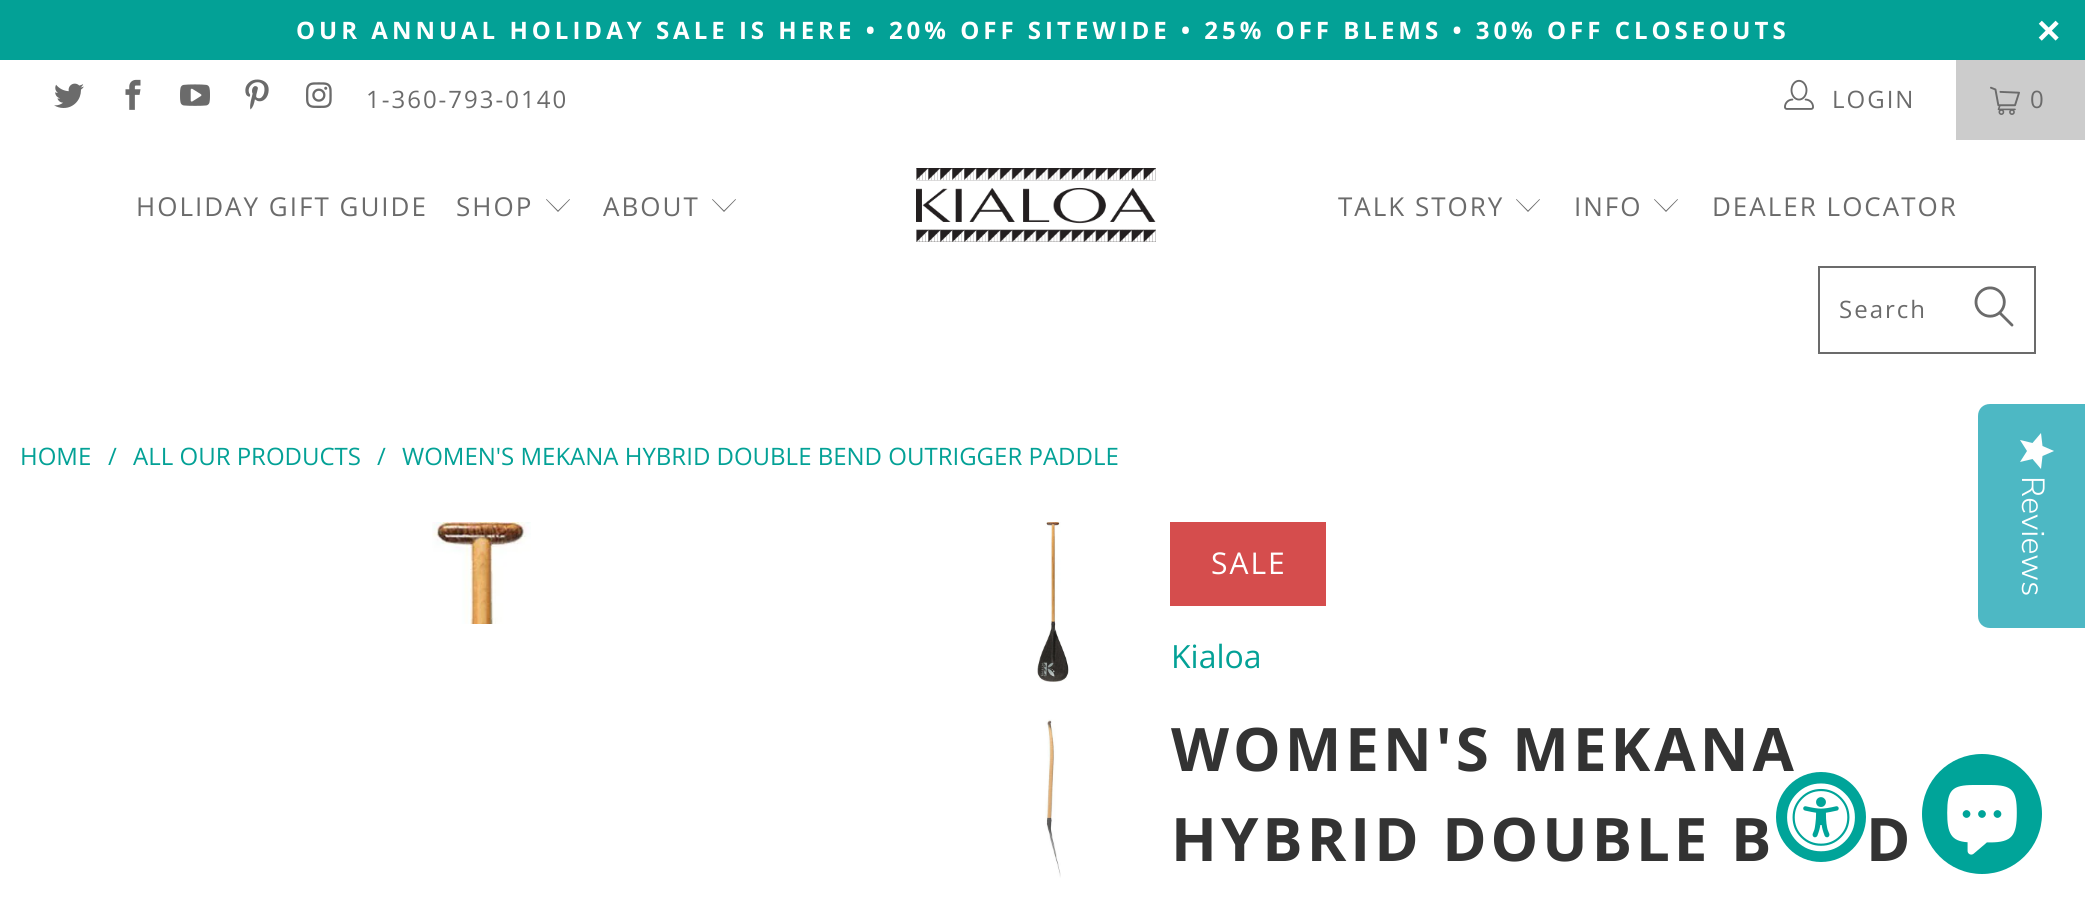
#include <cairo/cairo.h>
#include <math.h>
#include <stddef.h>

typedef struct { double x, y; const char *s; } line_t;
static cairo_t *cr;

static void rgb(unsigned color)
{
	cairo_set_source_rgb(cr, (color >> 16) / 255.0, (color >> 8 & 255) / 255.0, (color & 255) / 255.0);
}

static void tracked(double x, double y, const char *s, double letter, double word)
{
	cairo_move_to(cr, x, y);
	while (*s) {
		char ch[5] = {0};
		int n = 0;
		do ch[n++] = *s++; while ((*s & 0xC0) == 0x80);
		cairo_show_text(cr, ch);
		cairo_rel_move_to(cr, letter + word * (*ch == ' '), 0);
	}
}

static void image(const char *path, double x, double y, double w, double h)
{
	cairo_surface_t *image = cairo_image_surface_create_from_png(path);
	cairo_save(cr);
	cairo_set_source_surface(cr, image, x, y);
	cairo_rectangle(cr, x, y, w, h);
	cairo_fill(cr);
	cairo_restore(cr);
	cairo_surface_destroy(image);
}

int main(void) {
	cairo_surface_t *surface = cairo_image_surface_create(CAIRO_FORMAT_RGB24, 2085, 915);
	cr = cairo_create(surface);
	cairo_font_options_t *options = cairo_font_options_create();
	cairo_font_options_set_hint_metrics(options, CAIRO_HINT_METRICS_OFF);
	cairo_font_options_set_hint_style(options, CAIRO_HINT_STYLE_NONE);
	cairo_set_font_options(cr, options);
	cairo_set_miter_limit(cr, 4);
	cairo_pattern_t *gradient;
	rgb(0xffffff);
	cairo_paint(cr);
	rgb(0x03a196);
	cairo_rectangle(cr, 0, 0, 2085, 60);
	cairo_fill(cr);
	image("img/1.png", 54, 83, 30, 25);
	image("img/2.png", 125, 79, 16, 31);
	image("img/3.png", 180, 84, 30, 22);
	image("img/4.png", 245, 79, 24, 31);
	image("img/5.png", 306, 82, 26, 26);
	image("img/6.png", 1784, 79, 30, 31);
	rgb(0xcccccc);
	cairo_rectangle(cr, 1956, 60, 129, 80);
	cairo_fill(cr);
	image("img/7.png", 1990, 86, 30, 29);
	rgb(0x6b6b6b);
	cairo_new_path(cr);
	cairo_move_to(cr, 558, 212);
	cairo_line_to(cr, 546, 199.5);
	cairo_line_to(cr, 546.5, 199);
	cairo_line_to(cr, 558, 210.5);
	cairo_line_to(cr, 569.5, 199);
	cairo_line_to(cr, 570, 199.5);
	cairo_close_path(cr);
	cairo_fill(cr);
	cairo_new_path(cr);
	cairo_move_to(cr, 724, 212);
	cairo_line_to(cr, 712, 199.5);
	cairo_line_to(cr, 712.5, 199);
	cairo_line_to(cr, 724, 210.5);
	cairo_line_to(cr, 735.5, 199);
	cairo_line_to(cr, 736, 199.5);
	cairo_close_path(cr);
	cairo_fill(cr);
	image("img/8.png", 916, 168, 240, 74);
	cairo_new_path(cr);
	cairo_move_to(cr, 1528, 212);
	cairo_line_to(cr, 1516, 199.5);
	cairo_line_to(cr, 1516.5, 199);
	cairo_line_to(cr, 1528, 210.5);
	cairo_line_to(cr, 1539.5, 199);
	cairo_line_to(cr, 1540, 199.5);
	cairo_close_path(cr);
	cairo_fill(cr);
	cairo_new_path(cr);
	cairo_move_to(cr, 1666, 212);
	cairo_line_to(cr, 1654, 199.5);
	cairo_line_to(cr, 1654.5, 199);
	cairo_line_to(cr, 1666, 210.5);
	cairo_line_to(cr, 1677.5, 199);
	cairo_line_to(cr, 1678, 199.5);
	cairo_close_path(cr);
	cairo_fill(cr);
	cairo_rectangle(cr, 1819, 267, 216, 86);
	cairo_stroke(cr);
	image("img/9.png", 1974, 286, 40, 41);
	image("img/10.png", 432, 522, 99, 102);
	image("img/11.png", 1037, 522, 32, 160);
	image("img/12.png", 1045, 719, 16, 159);
	rgb(0xd54d4d);
	cairo_rectangle(cr, 1170, 522, 156, 84);
	cairo_fill(cr);
	rgb(0x4db8c4);
	cairo_new_path(cr);
	cairo_move_to(cr, 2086, 404);
	cairo_line_to(cr, 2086, 628);
	cairo_line_to(cr, 1990, 628);
	cairo_curve_to(cr, 1983, 628, 1978, 623, 1978, 616);
	cairo_line_to(cr, 1978, 416);
	cairo_curve_to(cr, 1978, 409, 1983, 404, 1990, 404);
	cairo_close_path(cr);
	cairo_fill(cr);
	gradient = cairo_pattern_create_linear(2054, 433, 2054, 469);
	cairo_pattern_add_color_stop_rgba(gradient, 1, 0.996, 0.996, 0.996, 1);
	cairo_pattern_add_color_stop_rgba(gradient, 1, 0.941, 0.941, 0.941, 1);
	cairo_set_source(cr, gradient);
	cairo_pattern_destroy(gradient);
	cairo_new_path(cr);
	cairo_move_to(cr, 2027, 451);
	cairo_line_to(cr, 2020, 462);
	cairo_line_to(cr, 2032.5, 459);
	cairo_line_to(cr, 2041, 469);
	cairo_line_to(cr, 2042.5, 456);
	cairo_line_to(cr, 2054, 451);
	cairo_line_to(cr, 2042.5, 446);
	cairo_line_to(cr, 2041, 433);
	cairo_line_to(cr, 2032.5, 443);
	cairo_line_to(cr, 2020, 440);
	cairo_close_path(cr);
	cairo_fill(cr);
	rgb(0x00a499);
	cairo_arc(cr, 1821, 817, 45, 0, 2 * M_PI);
	cairo_fill(cr);
	image("img/13.png", 1787, 783, 68, 69);
	cairo_arc(cr, 1982, 814, 60, 0, 2 * M_PI);
	cairo_fill(cr);
	image("img/14.png", 1947, 785, 70, 70);
	cairo_select_font_face(cr, "Open Sans", CAIRO_FONT_SLANT_NORMAL, CAIRO_FONT_WEIGHT_BOLD);
	cairo_set_font_size(cr, 24);
	rgb(0xffffff);
	tracked(296, 39, "OUR ANNUAL HOLIDAY SALE IS HERE • 20% OFF SITEWIDE • 25% OFF BLEMS • 30% OFF CLOSEOUTS", 4, 0);
	cairo_select_font_face(cr, "Liberation Sans", CAIRO_FONT_SLANT_NORMAL, CAIRO_FONT_WEIGHT_BOLD);
	cairo_set_font_size(cr, 40);
	tracked(2037, 44, "×", 4, 0);
	cairo_select_font_face(cr, "Open Sans", CAIRO_FONT_SLANT_NORMAL, CAIRO_FONT_WEIGHT_NORMAL);
	cairo_set_font_size(cr, 24);
	rgb(0x6b6b6b);
	{
		static const line_t items[] = {
			{366, 108, "1-360-793-0140"},
			{1832, 108, "LOGIN"},
			{2030, 108, "0"},
		};
		for (size_t i = 0; i < sizeof items / sizeof *items; i++) {
			tracked(items[i].x, items[i].y, items[i].s, 2, 0);
		}
	}
	cairo_set_font_size(cr, 26);
	{
		static const line_t items[] = {
			{136, 216, "HOLIDAY GIFT GUIDE"},
			{456, 216, "SHOP"},
			{603, 216, "ABOUT"},
			{1338, 216, "TALK STORY"},
			{1574, 216, "INFO"},
			{1712, 216, "DEALER LOCATOR"},
		};
		for (size_t i = 0; i < sizeof items / sizeof *items; i++) {
			tracked(items[i].x, items[i].y, items[i].s, 2, 0);
		}
	}
	cairo_set_font_size(cr, 24);
	tracked(1839, 318, "Search", 2, 0);
	rgb(0x03a196);
	{
		static const line_t items[] = {
			{20, 465, "HOME"},
			{108, 465, "/"},
			{133, 465, "ALL OUR PRODUCTS"},
			{377, 465, "/"},
			{402, 465, "WOMEN'S MEKANA HYBRID DOUBLE BEND OUTRIGGER PADDLE"},
		};
		for (size_t i = 0; i < sizeof items / sizeof *items; i++) {
			cairo_move_to(cr, items[i].x, items[i].y);
			cairo_show_text(cr, items[i].s);
		}
	}
	cairo_set_font_size(cr, 30);
	rgb(0xffffff);
	tracked(1211, 574, "SALE", 2, 0);
	cairo_set_font_size(cr, 32);
	rgb(0x03a196);
	cairo_move_to(cr, 1171, 668);
	cairo_show_text(cr, "Kialoa");
	cairo_select_font_face(cr, "Open Sans", CAIRO_FONT_SLANT_NORMAL, CAIRO_FONT_WEIGHT_BOLD);
	cairo_set_font_size(cr, 60);
	rgb(0x333333);
	{
		static const line_t items[] = {
			{1171, 771, "WOMEN'S MEKANA"},
			{1171, 861, "HYBRID DOUBLE B"},
			{1866, 861, "D"},
		};
		for (size_t i = 0; i < sizeof items / sizeof *items; i++) {
			tracked(items[i].x, items[i].y, items[i].s, 4, 0);
		}
	}
	cairo_select_font_face(cr, "Nunito Sans Light", CAIRO_FONT_SLANT_NORMAL, CAIRO_FONT_WEIGHT_NORMAL);
	cairo_set_font_size(cr, 32);
	rgb(0xffffff);
	cairo_save(cr);
	cairo_translate(cr, 2022, 476);
	cairo_rotate(cr, 90 * M_PI / 180);
	cairo_move_to(cr, 0, 0);
	cairo_show_text(cr, "Reviews");
	cairo_restore(cr);
	cairo_surface_write_to_png(surface, "page.png");
	cairo_font_options_destroy(options);
	cairo_destroy(cr);
	cairo_surface_destroy(surface);
	return 0;
}
